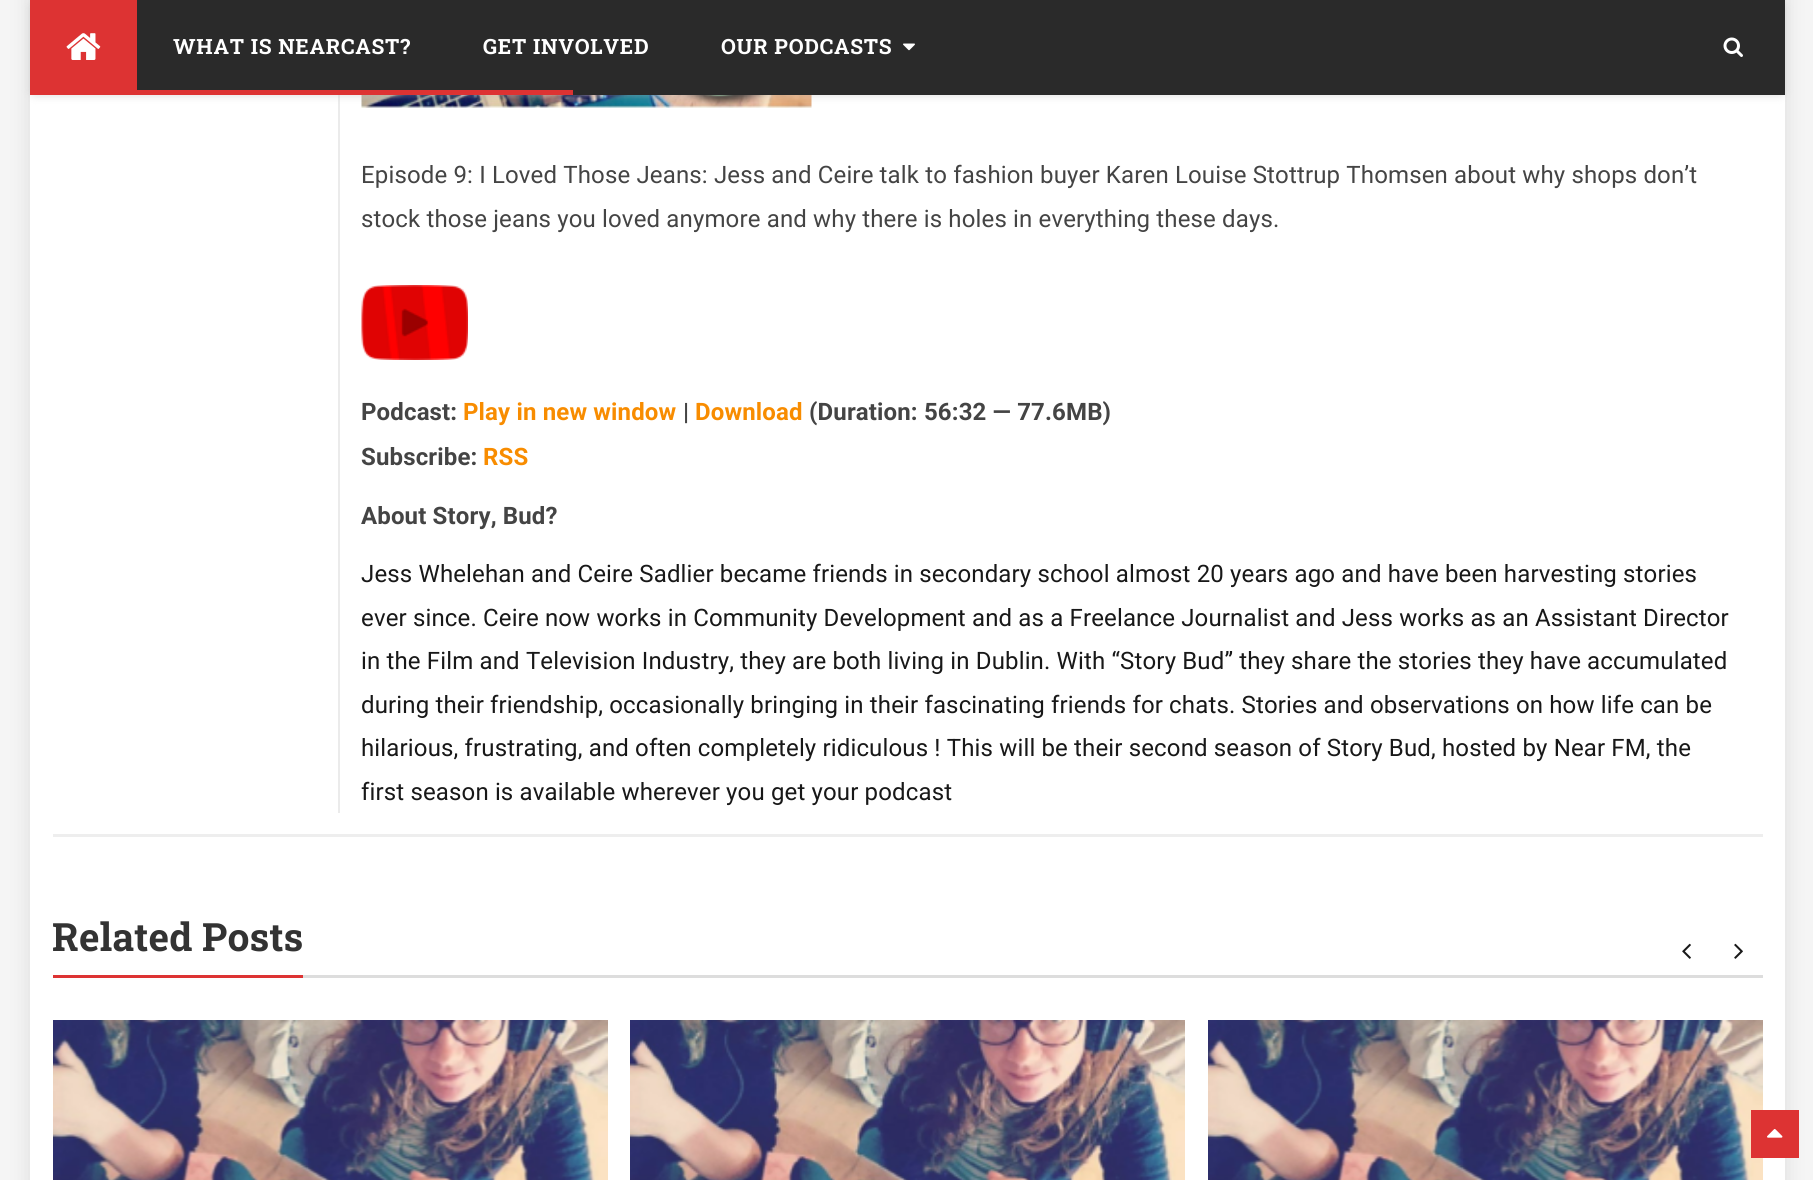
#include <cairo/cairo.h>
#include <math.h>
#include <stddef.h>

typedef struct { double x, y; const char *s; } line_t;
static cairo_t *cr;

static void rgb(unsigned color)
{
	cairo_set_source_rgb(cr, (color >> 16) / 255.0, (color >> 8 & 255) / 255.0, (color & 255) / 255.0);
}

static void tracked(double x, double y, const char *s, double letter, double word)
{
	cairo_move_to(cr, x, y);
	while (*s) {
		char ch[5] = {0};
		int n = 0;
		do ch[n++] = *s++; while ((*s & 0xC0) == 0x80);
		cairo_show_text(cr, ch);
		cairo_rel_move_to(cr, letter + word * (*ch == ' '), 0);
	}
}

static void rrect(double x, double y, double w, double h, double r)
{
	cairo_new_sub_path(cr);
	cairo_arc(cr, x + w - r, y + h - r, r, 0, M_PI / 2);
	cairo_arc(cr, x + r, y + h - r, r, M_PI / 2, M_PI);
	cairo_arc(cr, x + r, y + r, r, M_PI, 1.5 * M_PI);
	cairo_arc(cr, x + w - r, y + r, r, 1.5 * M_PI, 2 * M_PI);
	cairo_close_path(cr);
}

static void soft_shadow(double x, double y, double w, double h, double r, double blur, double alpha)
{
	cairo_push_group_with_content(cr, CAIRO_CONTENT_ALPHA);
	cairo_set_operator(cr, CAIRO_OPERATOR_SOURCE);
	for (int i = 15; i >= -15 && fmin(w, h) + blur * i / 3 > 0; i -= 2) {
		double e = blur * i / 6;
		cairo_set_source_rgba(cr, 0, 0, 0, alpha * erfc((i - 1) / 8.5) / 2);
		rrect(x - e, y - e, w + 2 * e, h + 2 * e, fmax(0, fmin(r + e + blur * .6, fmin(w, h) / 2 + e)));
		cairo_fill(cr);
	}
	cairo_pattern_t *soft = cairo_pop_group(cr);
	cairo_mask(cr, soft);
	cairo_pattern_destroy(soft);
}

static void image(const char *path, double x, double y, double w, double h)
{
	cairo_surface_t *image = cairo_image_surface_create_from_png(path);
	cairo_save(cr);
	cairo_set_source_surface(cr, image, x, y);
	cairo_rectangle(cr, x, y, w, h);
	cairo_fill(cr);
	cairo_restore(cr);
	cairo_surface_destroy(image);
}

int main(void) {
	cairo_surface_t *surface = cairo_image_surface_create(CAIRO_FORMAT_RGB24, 1813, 1180);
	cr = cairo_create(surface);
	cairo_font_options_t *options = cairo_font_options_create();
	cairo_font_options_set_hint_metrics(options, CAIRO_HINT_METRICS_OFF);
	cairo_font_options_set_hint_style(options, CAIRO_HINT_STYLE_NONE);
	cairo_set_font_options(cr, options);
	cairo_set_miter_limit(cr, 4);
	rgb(0xf5f5f5);
	cairo_paint(cr);
	rgb(0x000000);
	soft_shadow(30, -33, 1755, 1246, 0, 11, 0.1);
	rgb(0xffffff);
	cairo_rectangle(cr, 30, 95, 1755, 1085);
	cairo_fill(cr);
	rgb(0xebebeb);
	cairo_rectangle(cr, 338, 95, 2, 718);
	cairo_fill(cr);
	image("img/4.png", 361, 95, 451, 13);
	rgb(0xbebebe);
	soft_shadow(30, 2, 1755, 94, 6, 4, 0.46);
	rgb(0x2a2a2a);
	cairo_rectangle(cr, 137, 0, 1648, 95);
	cairo_fill(cr);
	rgb(0xdd3333);
	cairo_rectangle(cr, 30, 0, 107, 90);
	cairo_fill(cr);
	image("img/1.png", 66, 33, 35, 27);
	image("img/2.png", 903, 43, 12, 8);
	image("img/3.png", 1723, 37, 20, 20);
	cairo_rectangle(cr, 30, 90, 543, 5);
	cairo_fill(cr);
	rgb(0xeeeeee);
	cairo_rectangle(cr, 53, 834, 1710, 3);
	cairo_fill(cr);
	image("img/5.png", 361, 285, 107, 75);
	rgb(0xdd3333);
	cairo_rectangle(cr, 53, 975, 250, 3);
	cairo_fill(cr);
	rgb(0xdddddd);
	cairo_rectangle(cr, 303, 975, 1460, 3);
	cairo_fill(cr);
	image("img/6.png", 1682, 943, 9, 16);
	image("img/7.png", 1734, 943, 9, 16);
	image("img/8.png", 53, 1020, 555, 160);
	image("img/9.png", 630, 1020, 555, 160);
	image("img/8.png", 1208, 1020, 555, 160);
	rgb(0xdd3333);
	cairo_rectangle(cr, 1751, 1110, 48, 48);
	cairo_fill(cr);
	image("img/10.png", 1767, 1129, 16, 9);
	cairo_select_font_face(cr, "Roboto Slab", CAIRO_FONT_SLANT_NORMAL, CAIRO_FONT_WEIGHT_BOLD);
	cairo_set_font_size(cr, 21);
	rgb(0xffffff);
	{
		static const line_t items[] = {
			{173, 54, "WHAT IS NEARCAST?"},
			{483, 54, "GET INVOLVED"},
			{721, 54, "OUR PODCASTS"},
		};
		for (size_t i = 0; i < sizeof items / sizeof *items; i++) {
			tracked(items[i].x, items[i].y, items[i].s, 0.75, 0);
		}
	}
	cairo_select_font_face(cr, "Roboto", CAIRO_FONT_SLANT_NORMAL, CAIRO_FONT_WEIGHT_NORMAL);
	cairo_set_font_size(cr, 24);
	rgb(0x444444);
	tracked(361, 183, "Episode 9: I Loved Those Jeans: Jess and Ceire talk to fashion buyer Karen Louise Stottrup Thomsen about why shops don’t", 0.15, 0);
	tracked(361, 227, "stock those jeans you loved anymore and why there is holes in everything these days.", 0.15, 0);
	cairo_select_font_face(cr, "Roboto", CAIRO_FONT_SLANT_NORMAL, CAIRO_FONT_WEIGHT_BOLD);
	tracked(361, 420, "Podcast:", 0.15, 0);
	rgb(0xf88c00);
	tracked(463, 420, "Play in new window", 0.15, 0);
	rgb(0x444444);
	tracked(683, 420, "|", 0.15, 0);
	rgb(0xf88c00);
	tracked(695, 420, "Download", 0.15, 0);
	rgb(0x444444);
	tracked(809, 420, "(Duration: 56:32 — 77.6MB)", 0.15, 0);
	tracked(361, 465, "Subscribe:", 0.15, 0);
	rgb(0xf88c00);
	tracked(483, 465, "RSS", 0.15, 0);
	rgb(0x444444);
	tracked(361, 524, "About Story, Bud?", 0.15, 0);
	cairo_select_font_face(cr, "Roboto", CAIRO_FONT_SLANT_NORMAL, CAIRO_FONT_WEIGHT_NORMAL);
	rgb(0x181818);
	{
		static const line_t items[] = {
			{361, 582, "Jess Whelehan and Ceire Sadlier became friends in secondary school almost 20 years ago and have been harvesting stories"},
			{361, 626, "ever since. Ceire now works in Community Development and as a Freelance Journalist and Jess works as an Assistant Director"},
			{361, 669, "in the Film and Television Industry, they are both living in Dublin. With “Story Bud” they share the stories they have accumulated"},
			{361, 713, "during their friendship, occasionally bringing in their fascinating friends for chats. Stories and observations on how life can be"},
			{361, 756, "hilarious, frustrating, and often completely ridiculous ! This will be their second season of Story Bud, hosted by Near FM, the"},
			{361, 800, "first season is available wherever you get your podcast"},
		};
		for (size_t i = 0; i < sizeof items / sizeof *items; i++) {
			tracked(items[i].x, items[i].y, items[i].s, 0.15, 0);
		}
	}
	cairo_select_font_face(cr, "Roboto Slab", CAIRO_FONT_SLANT_NORMAL, CAIRO_FONT_WEIGHT_BOLD);
	cairo_set_font_size(cr, 39);
	rgb(0x333333);
	tracked(52, 951, "Related Posts", 0.15, 0);
	cairo_surface_write_to_png(surface, "page.png");
	cairo_font_options_destroy(options);
	cairo_destroy(cr);
	cairo_surface_destroy(surface);
	return 0;
}
